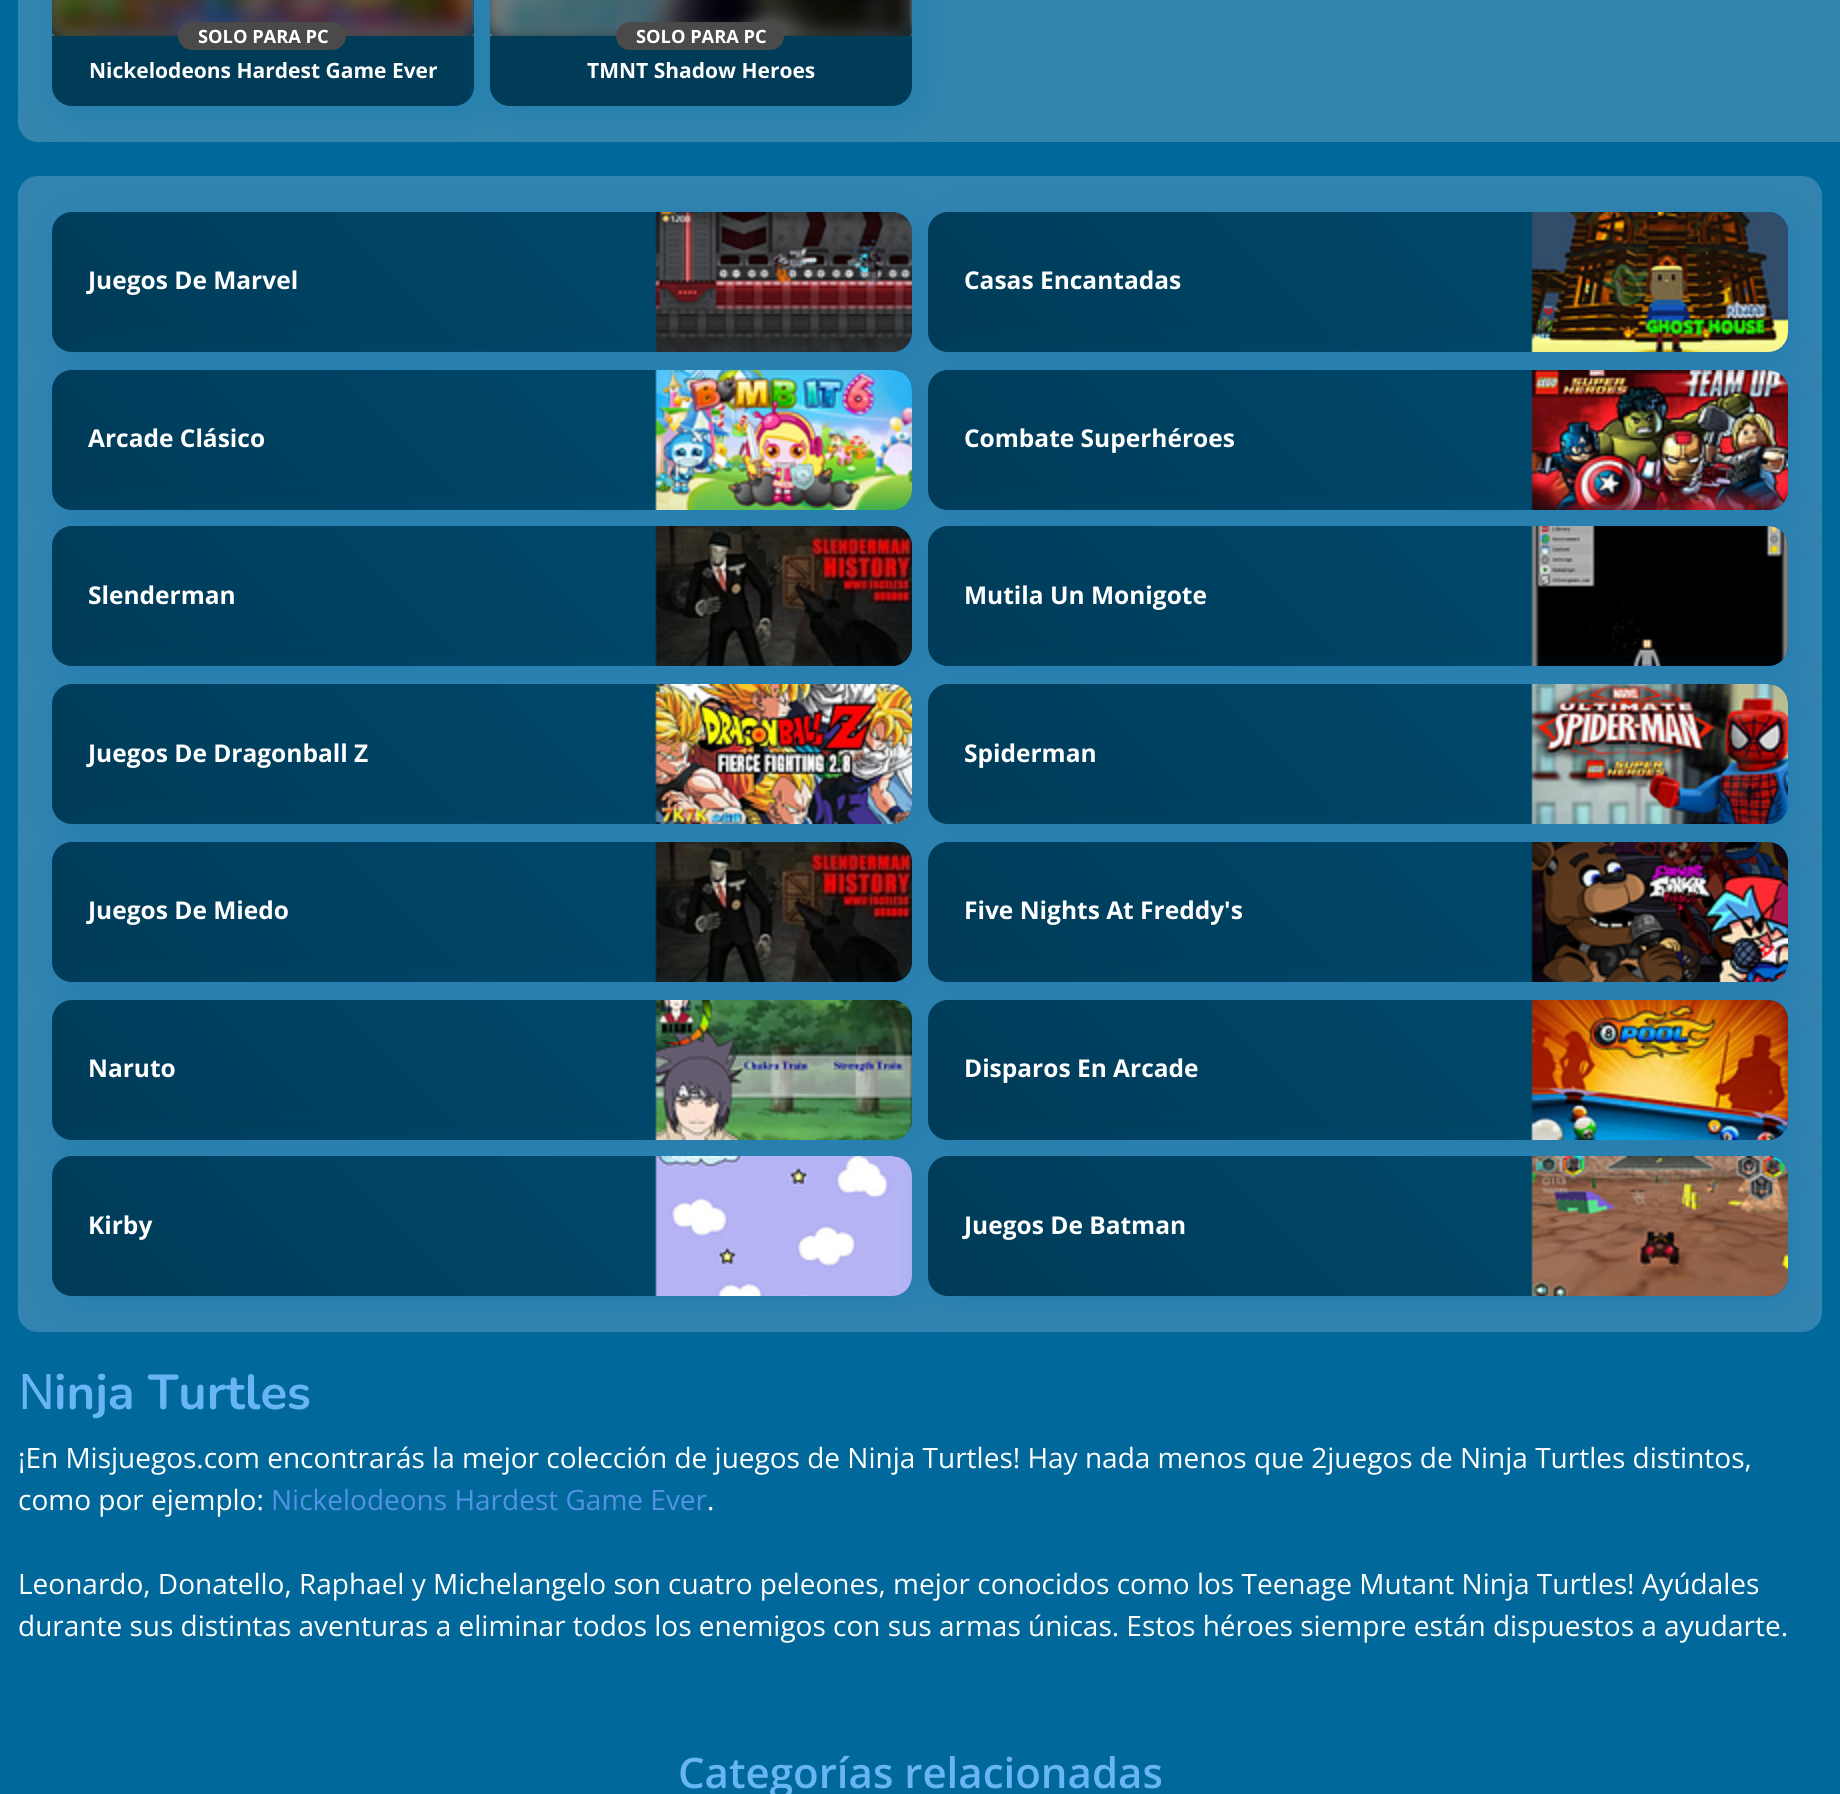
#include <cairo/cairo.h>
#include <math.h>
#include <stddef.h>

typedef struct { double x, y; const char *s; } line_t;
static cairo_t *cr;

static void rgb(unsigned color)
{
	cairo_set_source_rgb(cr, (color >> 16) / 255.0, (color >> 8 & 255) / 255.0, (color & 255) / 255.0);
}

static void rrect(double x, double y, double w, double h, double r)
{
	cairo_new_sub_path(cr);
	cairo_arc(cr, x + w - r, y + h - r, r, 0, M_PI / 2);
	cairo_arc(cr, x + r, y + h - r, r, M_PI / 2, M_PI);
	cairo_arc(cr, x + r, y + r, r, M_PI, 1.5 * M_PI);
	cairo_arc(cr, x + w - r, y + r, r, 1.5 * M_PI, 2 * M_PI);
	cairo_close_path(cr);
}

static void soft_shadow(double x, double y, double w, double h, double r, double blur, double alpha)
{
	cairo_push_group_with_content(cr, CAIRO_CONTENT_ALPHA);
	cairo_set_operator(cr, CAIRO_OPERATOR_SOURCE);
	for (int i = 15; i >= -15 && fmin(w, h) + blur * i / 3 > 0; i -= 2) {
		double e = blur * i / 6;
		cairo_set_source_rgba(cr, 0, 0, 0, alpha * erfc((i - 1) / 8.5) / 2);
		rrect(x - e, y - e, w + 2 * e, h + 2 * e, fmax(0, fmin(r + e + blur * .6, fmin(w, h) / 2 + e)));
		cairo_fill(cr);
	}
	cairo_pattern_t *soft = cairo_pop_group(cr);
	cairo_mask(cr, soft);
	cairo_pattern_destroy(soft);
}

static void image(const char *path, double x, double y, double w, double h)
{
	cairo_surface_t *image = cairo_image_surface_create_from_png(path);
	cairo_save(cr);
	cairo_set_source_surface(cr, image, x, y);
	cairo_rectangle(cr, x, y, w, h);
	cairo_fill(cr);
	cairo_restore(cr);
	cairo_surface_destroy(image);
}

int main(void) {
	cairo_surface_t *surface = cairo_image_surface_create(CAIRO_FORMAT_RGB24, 1840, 1794);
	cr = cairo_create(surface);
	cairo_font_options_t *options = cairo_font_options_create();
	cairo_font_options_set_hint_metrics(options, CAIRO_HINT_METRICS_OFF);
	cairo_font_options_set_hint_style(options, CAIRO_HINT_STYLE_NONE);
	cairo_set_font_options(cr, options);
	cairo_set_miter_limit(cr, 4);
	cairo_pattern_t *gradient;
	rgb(0x00689a);
	cairo_paint(cr);
	rgb(0x3386ae);
	cairo_new_path(cr);
	cairo_move_to(cr, 38, -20);
	cairo_line_to(cr, 1822, -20);
	cairo_line_to(cr, 1822, 142);
	cairo_line_to(cr, 38, 142);
	cairo_curve_to(cr, 27, 142, 18, 133, 18, 122);
	cairo_line_to(cr, 18, 0);
	cairo_curve_to(cr, 18, -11, 27, -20, 38, -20);
	cairo_close_path(cr);
	cairo_fill(cr);
	rgb(0x1276af);
	soft_shadow(60, -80, 422, 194, 20, 20, 0.5);
	rgb(0x003b58);
	rrect(52, -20, 422, 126, 20);
	cairo_fill(cr);
	cairo_save(cr);
	cairo_rectangle(cr, 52, 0, 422, 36);
	cairo_clip(cr);
	rgb(0xfafafa);
	soft_shadow(52, -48, 422, 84, 18, 10, 1);
	cairo_restore(cr);
	image("img/1.png", 52, 0, 420, 36);
	cairo_set_source_rgba(cr, 0, 0, 0, 0.5);
	cairo_new_path(cr);
	cairo_move_to(cr, 72, -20);
	cairo_line_to(cr, 454, -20);
	cairo_curve_to(cr, 465, -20, 474, -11, 474, 0);
	cairo_line_to(cr, 474, 32);
	cairo_curve_to(cr, 474, 34, 472, 36, 470, 36);
	cairo_line_to(cr, 56, 36);
	cairo_curve_to(cr, 54, 36, 52, 34, 52, 32);
	cairo_line_to(cr, 52, 0);
	cairo_curve_to(cr, 52, -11, 61, -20, 72, -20);
	cairo_close_path(cr);
	cairo_fill(cr);
	rgb(0x4a4a4a);
	rrect(178, 22, 168, 28, 14);
	cairo_fill(cr);
	rgb(0x1276af);
	soft_shadow(498, -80, 422, 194, 20, 20, 0.5);
	rgb(0x003b58);
	rrect(490, -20, 422, 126, 20);
	cairo_fill(cr);
	cairo_save(cr);
	cairo_rectangle(cr, 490, 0, 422, 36);
	cairo_clip(cr);
	rgb(0xfafafa);
	soft_shadow(490, -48, 422, 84, 18, 10, 1);
	cairo_restore(cr);
	image("img/2.png", 490, 0, 420, 36);
	cairo_set_source_rgba(cr, 0, 0, 0, 0.5);
	cairo_new_path(cr);
	cairo_move_to(cr, 510, -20);
	cairo_line_to(cr, 892, -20);
	cairo_curve_to(cr, 903, -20, 912, -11, 912, 0);
	cairo_line_to(cr, 912, 32);
	cairo_curve_to(cr, 912, 34, 910, 36, 908, 36);
	cairo_line_to(cr, 494, 36);
	cairo_curve_to(cr, 492, 36, 490, 34, 490, 32);
	cairo_line_to(cr, 490, 0);
	cairo_curve_to(cr, 490, -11, 499, -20, 510, -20);
	cairo_close_path(cr);
	cairo_fill(cr);
	rgb(0x4a4a4a);
	rrect(616, 22, 168, 28, 14);
	cairo_fill(cr);
	rgb(0x3386ae);
	cairo_rectangle(cr, 1822, 0, 18, 142);
	cairo_fill(cr);
	rgb(0x3384b0);
	rrect(18, 176, 1804, 1156, 20);
	cairo_fill(cr);
	rgb(0x1276af);
	soft_shadow(60, 220, 860, 140, 20, 20, 0.5);
	gradient = cairo_pattern_create_linear(232, 532, 732, 32);
	cairo_pattern_add_color_stop_rgba(gradient, 0, 0, 0.231, 0.345, 1);
	cairo_pattern_add_color_stop_rgba(gradient, 1, 0, 0.302, 0.447, 1);
	cairo_set_source(cr, gradient);
	cairo_pattern_destroy(gradient);
	rrect(52, 212, 860, 140, 20);
	cairo_fill(cr);
	image("img/3.png", 655, 212, 257, 140);
	rgb(0x1276af);
	soft_shadow(936, 220, 860, 140, 20, 20, 0.5);
	gradient = cairo_pattern_create_linear(1108, 532, 1608, 32);
	cairo_pattern_add_color_stop_rgba(gradient, 0, 0, 0.231, 0.345, 1);
	cairo_pattern_add_color_stop_rgba(gradient, 1, 0, 0.302, 0.447, 1);
	cairo_set_source(cr, gradient);
	cairo_pattern_destroy(gradient);
	rrect(928, 212, 860, 140, 20);
	cairo_fill(cr);
	image("img/4.png", 1531, 212, 257, 140);
	rgb(0x1276af);
	soft_shadow(60, 378, 860, 140, 20, 20, 0.5);
	gradient = cairo_pattern_create_linear(232, 690, 732, 190);
	cairo_pattern_add_color_stop_rgba(gradient, 0, 0, 0.231, 0.345, 1);
	cairo_pattern_add_color_stop_rgba(gradient, 1, 0, 0.302, 0.447, 1);
	cairo_set_source(cr, gradient);
	cairo_pattern_destroy(gradient);
	rrect(52, 370, 860, 140, 20);
	cairo_fill(cr);
	image("img/5.png", 655, 370, 257, 140);
	rgb(0x1276af);
	soft_shadow(936, 378, 860, 140, 20, 20, 0.5);
	gradient = cairo_pattern_create_linear(1108, 690, 1608, 190);
	cairo_pattern_add_color_stop_rgba(gradient, 0, 0, 0.231, 0.345, 1);
	cairo_pattern_add_color_stop_rgba(gradient, 1, 0, 0.302, 0.447, 1);
	cairo_set_source(cr, gradient);
	cairo_pattern_destroy(gradient);
	rrect(928, 370, 860, 140, 20);
	cairo_fill(cr);
	image("img/6.png", 1531, 370, 257, 140);
	rgb(0x1276af);
	soft_shadow(60, 534, 860, 140, 20, 20, 0.5);
	gradient = cairo_pattern_create_linear(232, 846, 732, 346);
	cairo_pattern_add_color_stop_rgba(gradient, 0, 0, 0.231, 0.345, 1);
	cairo_pattern_add_color_stop_rgba(gradient, 1, 0, 0.302, 0.447, 1);
	cairo_set_source(cr, gradient);
	cairo_pattern_destroy(gradient);
	rrect(52, 526, 860, 140, 20);
	cairo_fill(cr);
	image("img/7.png", 655, 526, 257, 140);
	rgb(0x1276af);
	soft_shadow(936, 534, 860, 140, 20, 20, 0.5);
	gradient = cairo_pattern_create_linear(1108, 846, 1608, 346);
	cairo_pattern_add_color_stop_rgba(gradient, 0, 0, 0.231, 0.345, 1);
	cairo_pattern_add_color_stop_rgba(gradient, 1, 0, 0.302, 0.447, 1);
	cairo_set_source(cr, gradient);
	cairo_pattern_destroy(gradient);
	rrect(928, 526, 860, 140, 20);
	cairo_fill(cr);
	image("img/8.png", 1531, 526, 257, 140);
	rgb(0x1276af);
	soft_shadow(60, 692, 860, 140, 20, 20, 0.5);
	gradient = cairo_pattern_create_linear(232, 1004, 732, 504);
	cairo_pattern_add_color_stop_rgba(gradient, 0, 0, 0.231, 0.345, 1);
	cairo_pattern_add_color_stop_rgba(gradient, 1, 0, 0.302, 0.447, 1);
	cairo_set_source(cr, gradient);
	cairo_pattern_destroy(gradient);
	rrect(52, 684, 860, 140, 20);
	cairo_fill(cr);
	image("img/9.png", 655, 684, 257, 140);
	rgb(0x1276af);
	soft_shadow(936, 692, 860, 140, 20, 20, 0.5);
	gradient = cairo_pattern_create_linear(1108, 1004, 1608, 504);
	cairo_pattern_add_color_stop_rgba(gradient, 0, 0, 0.231, 0.345, 1);
	cairo_pattern_add_color_stop_rgba(gradient, 1, 0, 0.302, 0.447, 1);
	cairo_set_source(cr, gradient);
	cairo_pattern_destroy(gradient);
	rrect(928, 684, 860, 140, 20);
	cairo_fill(cr);
	image("img/10.png", 1531, 684, 257, 140);
	rgb(0x1276af);
	soft_shadow(60, 850, 860, 140, 20, 20, 0.5);
	gradient = cairo_pattern_create_linear(232, 1162, 732, 662);
	cairo_pattern_add_color_stop_rgba(gradient, 0, 0, 0.231, 0.345, 1);
	cairo_pattern_add_color_stop_rgba(gradient, 1, 0, 0.302, 0.447, 1);
	cairo_set_source(cr, gradient);
	cairo_pattern_destroy(gradient);
	rrect(52, 842, 860, 140, 20);
	cairo_fill(cr);
	image("img/11.png", 655, 842, 257, 140);
	rgb(0x1276af);
	soft_shadow(936, 850, 860, 140, 20, 20, 0.5);
	gradient = cairo_pattern_create_linear(1108, 1162, 1608, 662);
	cairo_pattern_add_color_stop_rgba(gradient, 0, 0, 0.231, 0.345, 1);
	cairo_pattern_add_color_stop_rgba(gradient, 1, 0, 0.302, 0.447, 1);
	cairo_set_source(cr, gradient);
	cairo_pattern_destroy(gradient);
	rrect(928, 842, 860, 140, 20);
	cairo_fill(cr);
	image("img/12.png", 1531, 842, 257, 140);
	rgb(0x1276af);
	soft_shadow(60, 1008, 860, 140, 20, 20, 0.5);
	gradient = cairo_pattern_create_linear(232, 1320, 732, 820);
	cairo_pattern_add_color_stop_rgba(gradient, 0, 0, 0.231, 0.345, 1);
	cairo_pattern_add_color_stop_rgba(gradient, 1, 0, 0.302, 0.447, 1);
	cairo_set_source(cr, gradient);
	cairo_pattern_destroy(gradient);
	rrect(52, 1000, 860, 140, 20);
	cairo_fill(cr);
	image("img/13.png", 655, 1000, 257, 140);
	rgb(0x1276af);
	soft_shadow(936, 1008, 860, 140, 20, 20, 0.5);
	gradient = cairo_pattern_create_linear(1108, 1320, 1608, 820);
	cairo_pattern_add_color_stop_rgba(gradient, 0, 0, 0.231, 0.345, 1);
	cairo_pattern_add_color_stop_rgba(gradient, 1, 0, 0.302, 0.447, 1);
	cairo_set_source(cr, gradient);
	cairo_pattern_destroy(gradient);
	rrect(928, 1000, 860, 140, 20);
	cairo_fill(cr);
	image("img/14.png", 1531, 1000, 257, 140);
	rgb(0x1276af);
	soft_shadow(60, 1164, 860, 140, 20, 20, 0.5);
	gradient = cairo_pattern_create_linear(232, 1476, 732, 976);
	cairo_pattern_add_color_stop_rgba(gradient, 0, 0, 0.231, 0.345, 1);
	cairo_pattern_add_color_stop_rgba(gradient, 1, 0, 0.302, 0.447, 1);
	cairo_set_source(cr, gradient);
	cairo_pattern_destroy(gradient);
	rrect(52, 1156, 860, 140, 20);
	cairo_fill(cr);
	image("img/15.png", 655, 1156, 257, 140);
	rgb(0x1276af);
	soft_shadow(936, 1164, 860, 140, 20, 20, 0.5);
	gradient = cairo_pattern_create_linear(1108, 1476, 1608, 976);
	cairo_pattern_add_color_stop_rgba(gradient, 0, 0, 0.231, 0.345, 1);
	cairo_pattern_add_color_stop_rgba(gradient, 1, 0, 0.302, 0.447, 1);
	cairo_set_source(cr, gradient);
	cairo_pattern_destroy(gradient);
	rrect(928, 1156, 860, 140, 20);
	cairo_fill(cr);
	image("img/16.png", 1531, 1156, 257, 140);
	cairo_select_font_face(cr, "Open Sans", CAIRO_FONT_SLANT_NORMAL, CAIRO_FONT_WEIGHT_BOLD);
	cairo_set_font_size(cr, 18.25);
	rgb(0xffffff);
	cairo_move_to(cr, 198, 43);
	cairo_show_text(cr, "SOLO PARA PC");
	cairo_set_font_size(cr, 21);
	cairo_move_to(cr, 89, 78);
	cairo_show_text(cr, "Nickelodeons Hardest Game Ever");
	cairo_set_font_size(cr, 18.25);
	cairo_move_to(cr, 636, 43);
	cairo_show_text(cr, "SOLO PARA PC");
	cairo_set_font_size(cr, 21);
	cairo_move_to(cr, 587, 78);
	cairo_show_text(cr, "TMNT Shadow Heroes");
	cairo_set_font_size(cr, 24.5);
	{
		static const line_t items[] = {
			{88, 289, "Juegos De Marvel"},
			{964, 289, "Casas Encantadas"},
			{88, 447, "Arcade Clásico"},
			{964, 447, "Combate Superhéroes"},
			{88, 604, "Slenderman"},
			{964, 604, "Mutila Un Monigote"},
			{88, 762, "Juegos De Dragonball Z"},
			{964, 762, "Spiderman"},
			{88, 919, "Juegos De Miedo"},
			{964, 919, "Five Nights At Freddy's"},
			{88, 1077, "Naruto"},
			{964, 1077, "Disparos En Arcade"},
			{88, 1234, "Kirby"},
			{964, 1234, "Juegos De Batman"},
		};
		for (size_t i = 0; i < sizeof items / sizeof *items; i++) {
			cairo_move_to(cr, items[i].x, items[i].y);
			cairo_show_text(cr, items[i].s);
		}
	}
	cairo_select_font_face(cr, "Noto Sans", CAIRO_FONT_SLANT_NORMAL, CAIRO_FONT_WEIGHT_NORMAL);
	cairo_set_font_size(cr, 49);
	rgb(0x67b5f4);
	cairo_move_to(cr, 18, 1409);
	cairo_show_text(cr, "N");
	cairo_select_font_face(cr, "Nunito", CAIRO_FONT_SLANT_NORMAL, CAIRO_FONT_WEIGHT_BOLD);
	cairo_move_to(cr, 54, 1409);
	cairo_show_text(cr, "inja Turtles");
	cairo_select_font_face(cr, "Open Sans", CAIRO_FONT_SLANT_NORMAL, CAIRO_FONT_WEIGHT_NORMAL);
	cairo_set_font_size(cr, 28);
	rgb(0xffffff);
	cairo_move_to(cr, 18, 1468);
	cairo_show_text(cr, "¡En Misjuegos.com encontrarás la mejor colección de juegos de Ninja Turtles! Hay nada menos que 2juegos de Ninja Turtles distintos,");
	cairo_move_to(cr, 18, 1510);
	cairo_show_text(cr, "como por ejemplo:");
	rgb(0x5392e5);
	cairo_move_to(cr, 271, 1510);
	cairo_show_text(cr, "Nickelodeons Hardest Game Ever");
	rgb(0xffffff);
	{
		static const line_t items[] = {
			{707, 1510, "."},
			{18, 1594, "Leonardo, Donatello, Raphael y Michelangelo son cuatro peleones, mejor conocidos como los Teenage Mutant Ninja Turtles! Ayúdales"},
			{18, 1636, "durante sus distintas aventuras a eliminar todos los enemigos con sus armas únicas. Estos héroes siempre están dispuestos a ayudarte."},
		};
		for (size_t i = 0; i < sizeof items / sizeof *items; i++) {
			cairo_move_to(cr, items[i].x, items[i].y);
			cairo_show_text(cr, items[i].s);
		}
	}
	cairo_select_font_face(cr, "Open Sans SemiBold", CAIRO_FONT_SLANT_NORMAL, CAIRO_FONT_WEIGHT_NORMAL);
	cairo_set_font_size(cr, 42);
	rgb(0x67b5f4);
	cairo_move_to(cr, 678, 1788);
	cairo_show_text(cr, "Categorías relacionadas");
	cairo_surface_write_to_png(surface, "page.png");
	cairo_font_options_destroy(options);
	cairo_destroy(cr);
	cairo_surface_destroy(surface);
	return 0;
}
